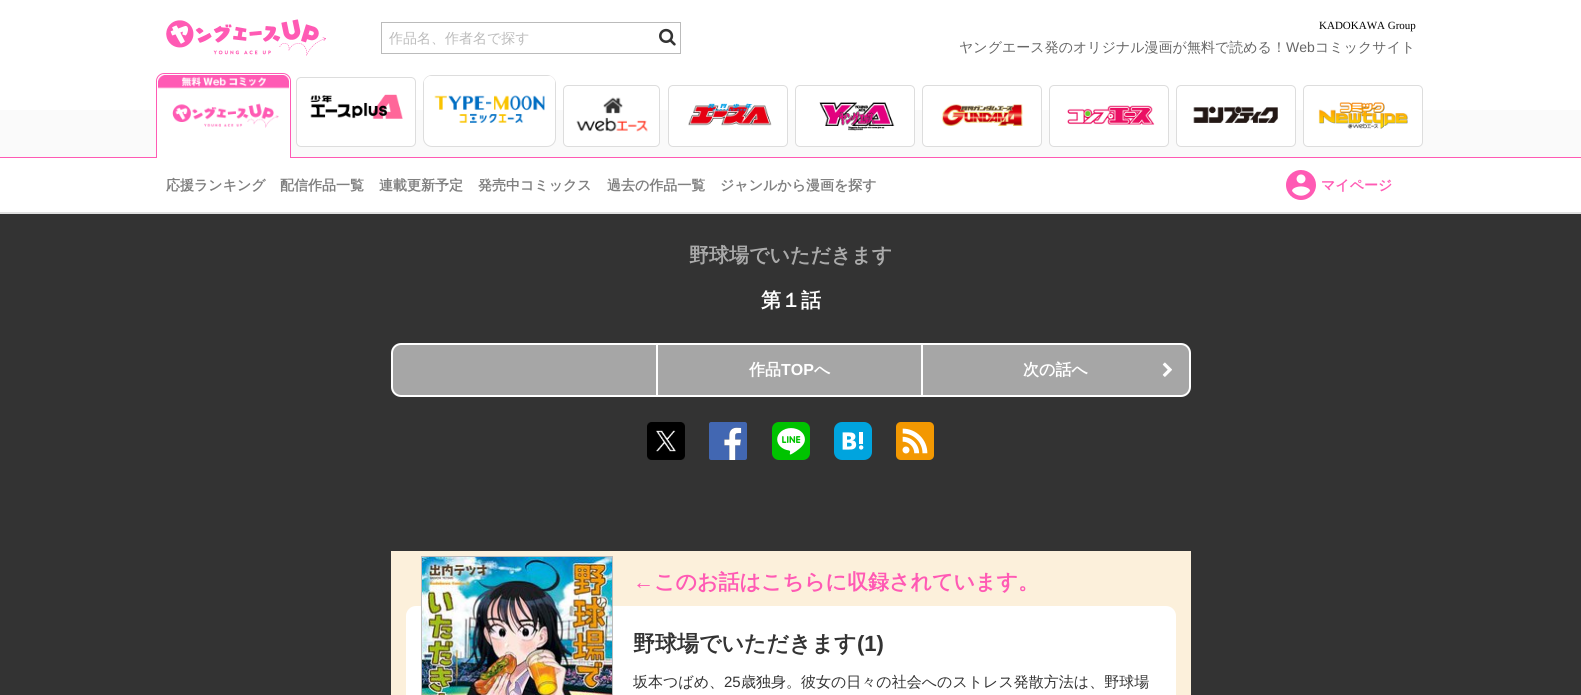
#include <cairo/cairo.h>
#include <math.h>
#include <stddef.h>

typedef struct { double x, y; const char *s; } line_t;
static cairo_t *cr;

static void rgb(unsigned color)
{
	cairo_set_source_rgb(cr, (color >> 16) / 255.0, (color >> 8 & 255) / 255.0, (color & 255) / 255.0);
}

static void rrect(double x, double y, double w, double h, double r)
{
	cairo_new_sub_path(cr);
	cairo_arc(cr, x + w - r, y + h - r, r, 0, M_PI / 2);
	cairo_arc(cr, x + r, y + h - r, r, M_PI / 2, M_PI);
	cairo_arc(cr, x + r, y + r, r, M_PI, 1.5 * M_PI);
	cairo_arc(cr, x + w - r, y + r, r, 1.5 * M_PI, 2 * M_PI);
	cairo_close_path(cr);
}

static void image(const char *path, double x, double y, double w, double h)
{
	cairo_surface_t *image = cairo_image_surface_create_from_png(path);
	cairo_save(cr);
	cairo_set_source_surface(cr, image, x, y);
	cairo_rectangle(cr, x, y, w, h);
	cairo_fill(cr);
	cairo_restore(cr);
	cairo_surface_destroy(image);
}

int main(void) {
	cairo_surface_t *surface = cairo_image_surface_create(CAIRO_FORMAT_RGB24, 1581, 695);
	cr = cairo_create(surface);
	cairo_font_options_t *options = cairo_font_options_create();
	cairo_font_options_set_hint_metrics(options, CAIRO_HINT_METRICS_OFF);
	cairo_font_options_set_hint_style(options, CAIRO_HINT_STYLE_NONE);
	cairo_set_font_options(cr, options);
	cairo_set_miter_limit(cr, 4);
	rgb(0x333333);
	cairo_paint(cr);
	rgb(0xffffff);
	cairo_rectangle(cr, 0, 0, 1581, 212);
	cairo_fill(cr);
	image("img/1.png", 166, 19, 160, 37);
	cairo_rectangle(cr, 381.5, 22.5, 299, 31);
	rgb(0xbbbbbb);
	cairo_set_line_width(cr, 1);
	cairo_stroke(cr);
	image("img/2.png", 659, 28, 17, 18);
	rgb(0xfafafa);
	cairo_rectangle(cr, 0, 110, 1581, 47);
	cairo_fill(cr);
	rgb(0xffffff);
	cairo_new_path(cr);
	cairo_move_to(cr, 164, 73.5);
	cairo_line_to(cr, 283, 73.5);
	cairo_curve_to(cr, 287, 73.5, 290.5, 77, 290.5, 81);
	cairo_line_to(cr, 290.5, 156.5);
	cairo_line_to(cr, 156.5, 156.5);
	cairo_line_to(cr, 156.5, 81);
	cairo_curve_to(cr, 156.5, 77, 160, 73.5, 164, 73.5);
	cairo_close_path(cr);
	cairo_fill_preserve(cr);
	rgb(0xff5ab4);
	cairo_stroke(cr);
	rgb(0xffffff);
	cairo_new_path(cr);
	cairo_move_to(cr, 166, 74);
	cairo_line_to(cr, 281, 74);
	cairo_curve_to(cr, 286, 74, 290, 78, 290, 83);
	cairo_line_to(cr, 290, 146);
	cairo_line_to(cr, 157, 146);
	cairo_line_to(cr, 157, 83);
	cairo_curve_to(cr, 157, 78, 161, 74, 166, 74);
	cairo_close_path(cr);
	cairo_fill(cr);
	cairo_set_fill_rule(cr, CAIRO_FILL_RULE_EVEN_ODD);
	cairo_new_path(cr);
	cairo_move_to(cr, 166, 74);
	cairo_line_to(cr, 281, 74);
	cairo_curve_to(cr, 286, 74, 290, 78, 290, 83);
	cairo_line_to(cr, 290, 146);
	cairo_line_to(cr, 157, 146);
	cairo_line_to(cr, 157, 83);
	cairo_curve_to(cr, 157, 78, 161, 74, 166, 74);
	cairo_close_path(cr);
	cairo_move_to(cr, 166, 75);
	cairo_line_to(cr, 281, 75);
	cairo_curve_to(cr, 285, 75, 289, 79, 289, 83);
	cairo_line_to(cr, 289, 146);
	cairo_line_to(cr, 158, 146);
	cairo_line_to(cr, 158, 83);
	cairo_curve_to(cr, 158, 79, 162, 75, 166, 75);
	cairo_close_path(cr);
	cairo_fill(cr);
	image("img/3.png", 158, 75, 131, 53);
	rgb(0xff5ab4);
	cairo_rectangle(cr, 0, 157, 1581, 1);
	cairo_fill(cr);
	rgb(0xffffff);
	cairo_rectangle(cr, 157, 156, 133, 2);
	cairo_fill(cr);
	rrect(296.5, 77.5, 119, 69, 4.5);
	cairo_fill_preserve(cr);
	rgb(0xdddddd);
	cairo_stroke(cr);
	image("img/4.png", 310, 94, 93, 25);
	rgb(0xffffff);
	rrect(423.5, 75.5, 132, 71, 8.5);
	cairo_fill_preserve(cr);
	rgb(0xdddddd);
	cairo_stroke(cr);
	image("img/5.png", 424, 76, 131, 47);
	rgb(0xffffff);
	rrect(563.5, 85.5, 96, 61, 4.5);
	cairo_fill_preserve(cr);
	rgb(0xdddddd);
	cairo_stroke(cr);
	image("img/6.png", 576, 97, 72, 35);
	rgb(0xffffff);
	rrect(668.5, 85.5, 119, 61, 4.5);
	cairo_fill_preserve(cr);
	rgb(0xdddddd);
	cairo_stroke(cr);
	image("img/7.png", 688, 103, 84, 23);
	rgb(0xffffff);
	rrect(795.5, 85.5, 119, 61, 4.5);
	cairo_fill_preserve(cr);
	rgb(0xdddddd);
	cairo_stroke(cr);
	image("img/8.png", 819, 102, 76, 29);
	rgb(0xffffff);
	rrect(922.5, 85.5, 119, 61, 4.5);
	cairo_fill_preserve(cr);
	rgb(0xdddddd);
	cairo_stroke(cr);
	image("img/9.png", 941, 104, 82, 22);
	rgb(0xffffff);
	rrect(1049.5, 85.5, 119, 61, 4.5);
	cairo_fill_preserve(cr);
	rgb(0xdddddd);
	cairo_stroke(cr);
	image("img/10.png", 1067, 105, 88, 20);
	rgb(0xffffff);
	rrect(1176.5, 85.5, 119, 61, 4.5);
	cairo_fill_preserve(cr);
	rgb(0xdddddd);
	cairo_stroke(cr);
	image("img/11.png", 1193, 106, 85, 17);
	rgb(0xffffff);
	rrect(1303.5, 85.5, 119, 61, 4.5);
	cairo_fill_preserve(cr);
	rgb(0xdddddd);
	cairo_stroke(cr);
	image("img/12.png", 1318, 102, 90, 27);
	rgb(0xe0e0e0);
	cairo_rectangle(cr, 0, 212, 1581, 2);
	cairo_fill(cr);
	image("img/13.png", 1286, 170, 30, 30);
	rgb(0xa6a6a6);
	rrect(392, 344, 798, 52, 9);
	cairo_fill_preserve(cr);
	rgb(0xffffff);
	cairo_set_line_width(cr, 2);
	cairo_stroke(cr);
	cairo_rectangle(cr, 656, 345, 2, 50);
	cairo_fill(cr);
	cairo_rectangle(cr, 921, 345, 2, 50);
	cairo_fill(cr);
	image("img/14.png", 1162, 362, 10, 15);
	image("img/15.png", 647, 422, 38, 38);
	image("img/16.png", 709, 422, 38, 38);
	image("img/17.png", 772, 422, 38, 38);
	image("img/18.png", 834, 422, 38, 38);
	image("img/19.png", 896, 422, 38, 38);
	rgb(0xfcf0db);
	cairo_rectangle(cr, 391, 551, 800, 144);
	cairo_fill(cr);
	rgb(0xffffff);
	rrect(406, 606, 770, 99, 10);
	cairo_fill(cr);
	cairo_rectangle(cr, 421.5, 556.5, 191, 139);
	rgb(0xbbbbbb);
	cairo_set_line_width(cr, 1);
	cairo_stroke(cr);
	image("img/20.png", 422, 557, 190, 138);
	cairo_select_font_face(cr, "Liberation Serif", CAIRO_FONT_SLANT_NORMAL, CAIRO_FONT_WEIGHT_NORMAL);
	cairo_set_font_size(cr, 11);
	rgb(0x000000);
	cairo_move_to(cr, 1319, 29);
	cairo_show_text(cr, "KADOKAWA Group");
	cairo_select_font_face(cr, "WenQuanYi Zen Hei Medium", CAIRO_FONT_SLANT_NORMAL, CAIRO_FONT_WEIGHT_NORMAL);
	cairo_set_font_size(cr, 14);
	rgb(0xbbbbbb);
	cairo_move_to(cr, 389, 43);
	cairo_show_text(cr, "作品名、作者名で探す");
	rgb(0x666666);
	cairo_move_to(cr, 959, 52);
	cairo_show_text(cr, "ヤングエース発のオリジナル漫画が無料で読める！");
	cairo_select_font_face(cr, "Liberation Sans", CAIRO_FONT_SLANT_NORMAL, CAIRO_FONT_WEIGHT_NORMAL);
	cairo_move_to(cr, 1286, 52);
	cairo_show_text(cr, "Web");
	cairo_select_font_face(cr, "WenQuanYi Zen Hei Medium", CAIRO_FONT_SLANT_NORMAL, CAIRO_FONT_WEIGHT_NORMAL);
	cairo_move_to(cr, 1315, 52);
	cairo_show_text(cr, "コミックサイト");
	cairo_select_font_face(cr, "WenQuanYi Zen Hei", CAIRO_FONT_SLANT_NORMAL, CAIRO_FONT_WEIGHT_BOLD);
	rgb(0x808080);
	{
		static const line_t items[] = {
			{166, 190, "応援ランキング"},
			{280, 190, "配信作品一覧"},
			{379, 190, "連載更新予定"},
			{478, 190, "発売中コミックス"},
			{607, 190, "過去の作品一覧"},
			{720, 190, "ジャンルから漫画を探す"},
		};
		for (size_t i = 0; i < sizeof items / sizeof *items; i++) {
			cairo_move_to(cr, items[i].x, items[i].y);
			cairo_show_text(cr, items[i].s);
		}
	}
	rgb(0xff5ab4);
	cairo_move_to(cr, 1321, 190);
	cairo_show_text(cr, "マイページ");
	cairo_set_font_size(cr, 20);
	rgb(0xaaaaaa);
	cairo_move_to(cr, 689, 262);
	cairo_show_text(cr, "野球場でいただきます");
	rgb(0xffffff);
	cairo_move_to(cr, 761, 307);
	cairo_show_text(cr, "第１話");
	cairo_set_font_size(cr, 16);
	cairo_move_to(cr, 749, 375);
	cairo_show_text(cr, "作品");
	cairo_select_font_face(cr, "Liberation Sans", CAIRO_FONT_SLANT_NORMAL, CAIRO_FONT_WEIGHT_BOLD);
	cairo_move_to(cr, 781, 375);
	cairo_show_text(cr, "TOP");
	cairo_select_font_face(cr, "WenQuanYi Zen Hei", CAIRO_FONT_SLANT_NORMAL, CAIRO_FONT_WEIGHT_BOLD);
	cairo_move_to(cr, 814, 375);
	cairo_show_text(cr, "へ");
	cairo_move_to(cr, 1023, 375);
	cairo_show_text(cr, "次の話へ");
	cairo_select_font_face(cr, "Liberation Sans", CAIRO_FONT_SLANT_NORMAL, CAIRO_FONT_WEIGHT_BOLD);
	cairo_set_font_size(cr, 21);
	rgb(0xff5ab4);
	cairo_move_to(cr, 633, 589);
	cairo_show_text(cr, "←");
	cairo_select_font_face(cr, "WenQuanYi Zen Hei", CAIRO_FONT_SLANT_NORMAL, CAIRO_FONT_WEIGHT_BOLD);
	cairo_move_to(cr, 654, 589);
	cairo_show_text(cr, "このお話はこちらに収録されています。");
	cairo_set_font_size(cr, 22);
	rgb(0x333333);
	cairo_move_to(cr, 633, 651);
	cairo_show_text(cr, "野球場でいただきます");
	cairo_select_font_face(cr, "Liberation Sans", CAIRO_FONT_SLANT_NORMAL, CAIRO_FONT_WEIGHT_BOLD);
	cairo_move_to(cr, 857, 651);
	cairo_show_text(cr, "(1)");
	cairo_select_font_face(cr, "WenQuanYi Zen Hei Medium", CAIRO_FONT_SLANT_NORMAL, CAIRO_FONT_WEIGHT_NORMAL);
	cairo_set_font_size(cr, 15);
	cairo_move_to(cr, 633, 687);
	cairo_show_text(cr, "坂本つばめ、");
	cairo_select_font_face(cr, "Liberation Sans", CAIRO_FONT_SLANT_NORMAL, CAIRO_FONT_WEIGHT_NORMAL);
	cairo_move_to(cr, 724, 687);
	cairo_show_text(cr, "25");
	cairo_select_font_face(cr, "WenQuanYi Zen Hei Medium", CAIRO_FONT_SLANT_NORMAL, CAIRO_FONT_WEIGHT_NORMAL);
	cairo_move_to(cr, 741, 687);
	cairo_show_text(cr, "歳独身。彼女の日々の社会へのストレス発散方法は、野球場");
	cairo_surface_write_to_png(surface, "page.png");
	cairo_font_options_destroy(options);
	cairo_destroy(cr);
	cairo_surface_destroy(surface);
	return 0;
}
